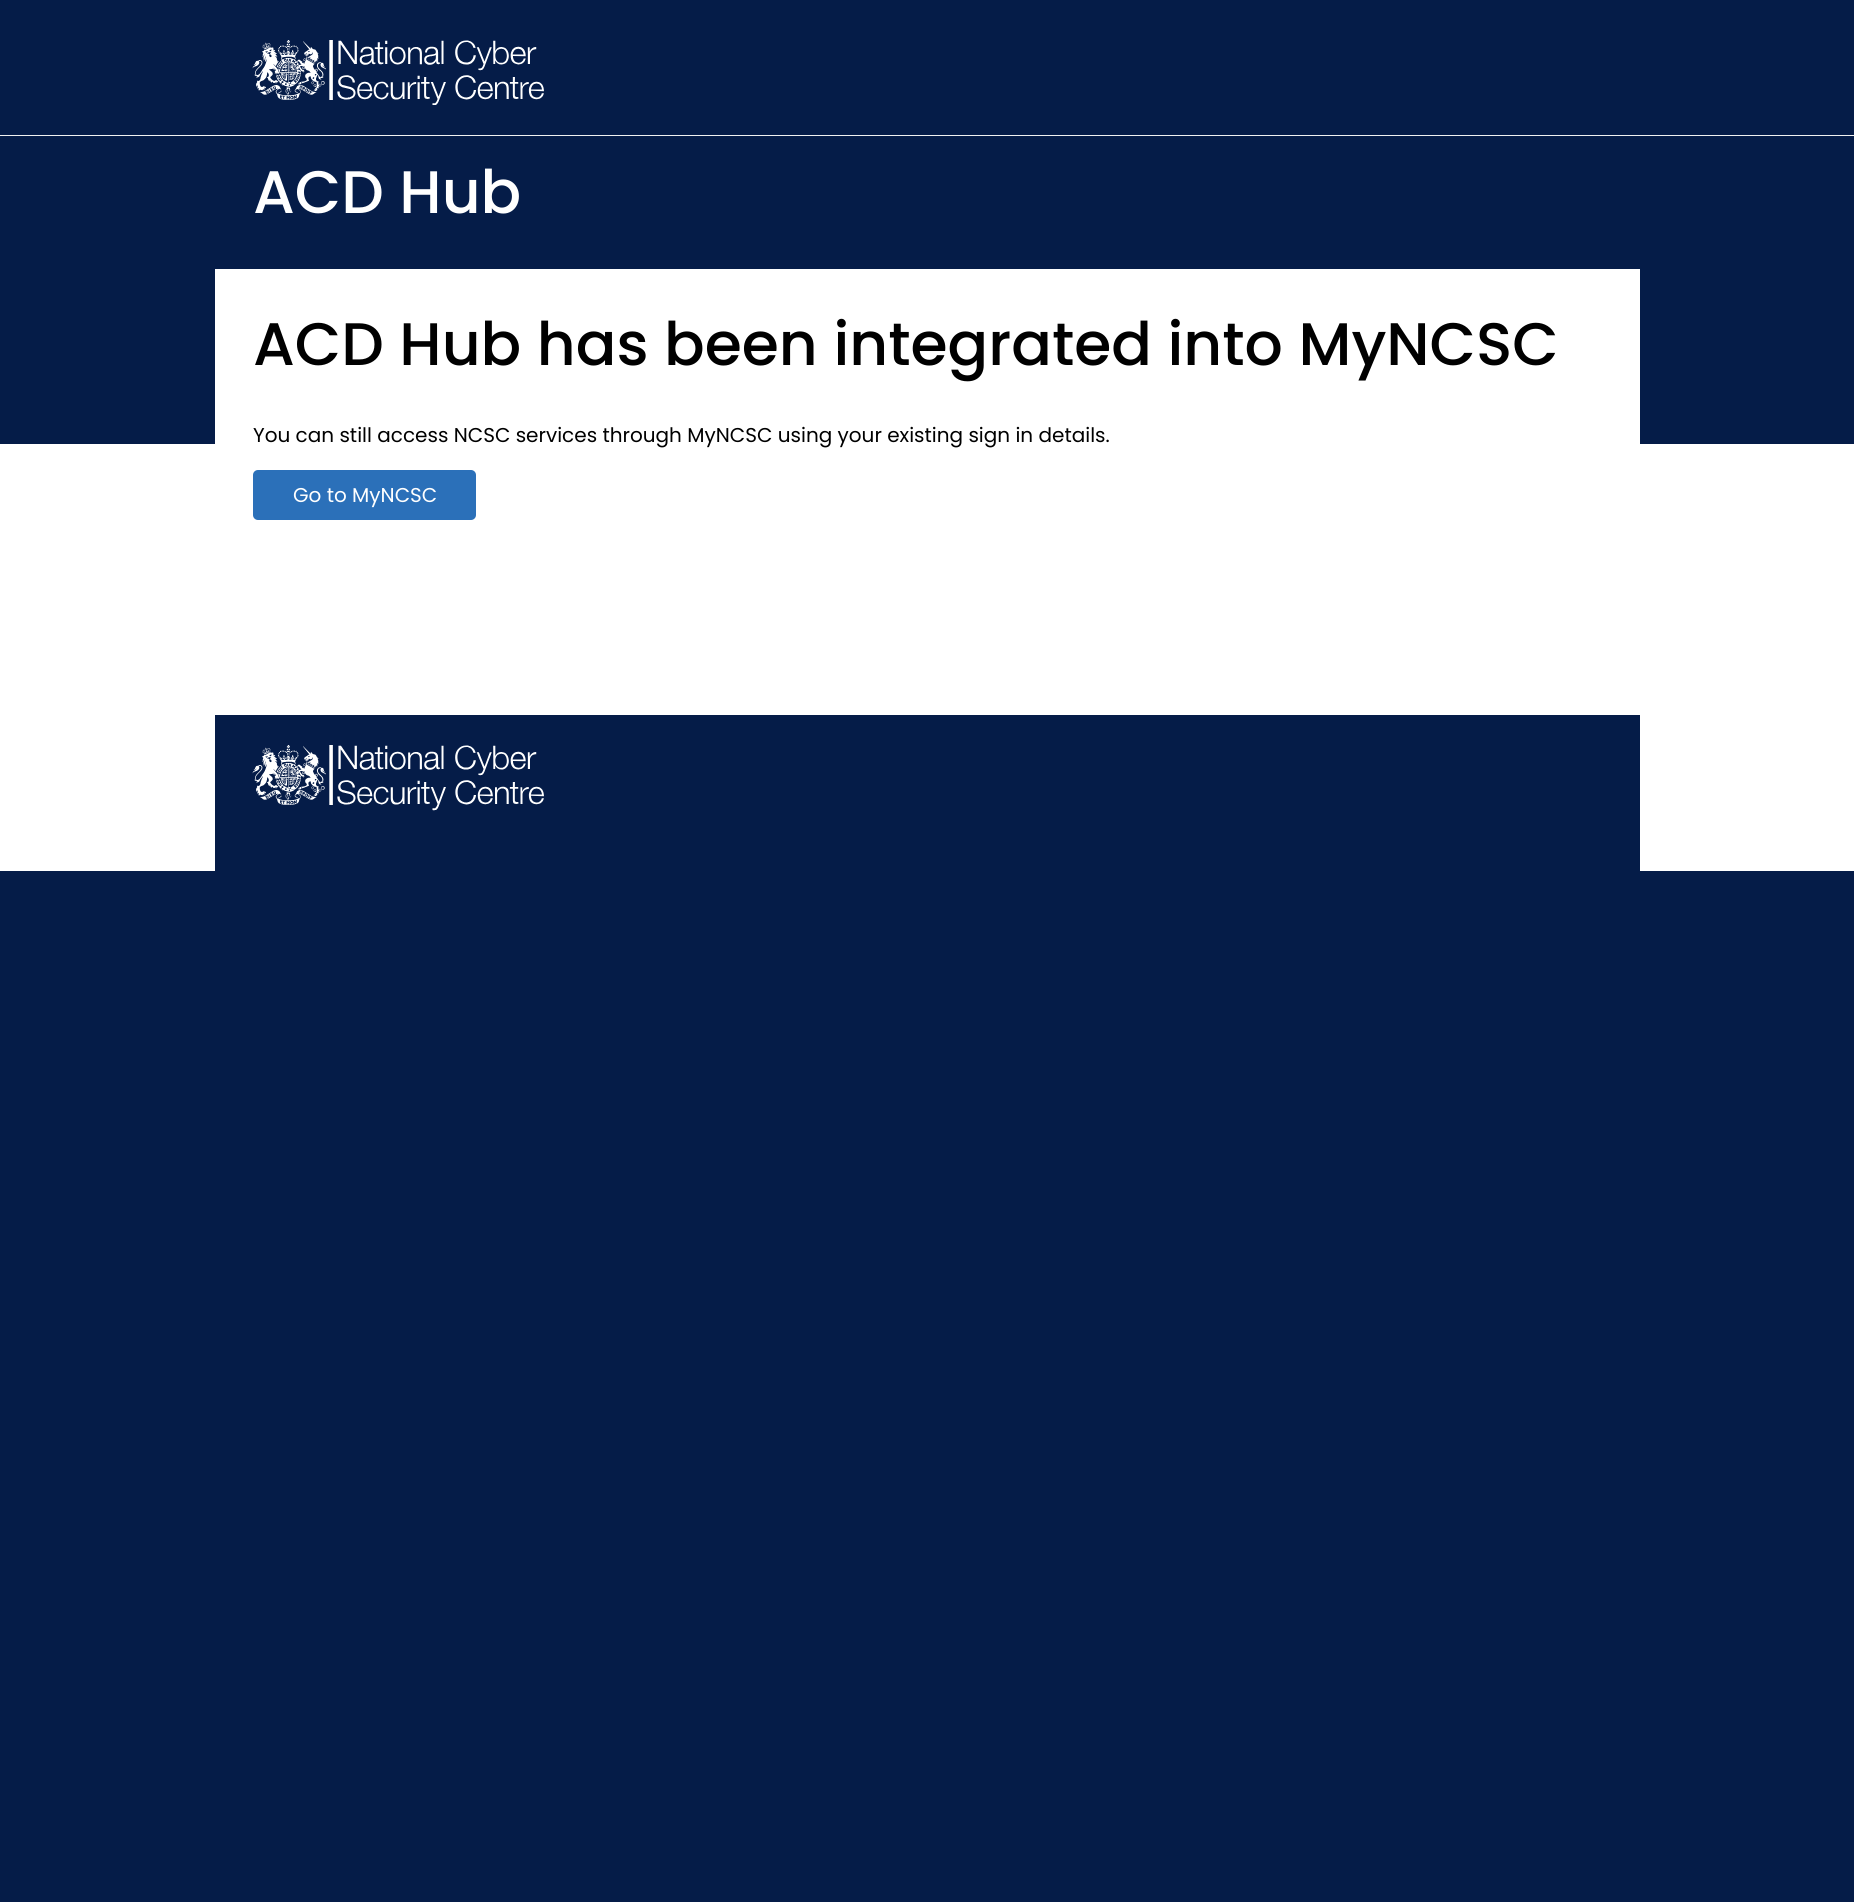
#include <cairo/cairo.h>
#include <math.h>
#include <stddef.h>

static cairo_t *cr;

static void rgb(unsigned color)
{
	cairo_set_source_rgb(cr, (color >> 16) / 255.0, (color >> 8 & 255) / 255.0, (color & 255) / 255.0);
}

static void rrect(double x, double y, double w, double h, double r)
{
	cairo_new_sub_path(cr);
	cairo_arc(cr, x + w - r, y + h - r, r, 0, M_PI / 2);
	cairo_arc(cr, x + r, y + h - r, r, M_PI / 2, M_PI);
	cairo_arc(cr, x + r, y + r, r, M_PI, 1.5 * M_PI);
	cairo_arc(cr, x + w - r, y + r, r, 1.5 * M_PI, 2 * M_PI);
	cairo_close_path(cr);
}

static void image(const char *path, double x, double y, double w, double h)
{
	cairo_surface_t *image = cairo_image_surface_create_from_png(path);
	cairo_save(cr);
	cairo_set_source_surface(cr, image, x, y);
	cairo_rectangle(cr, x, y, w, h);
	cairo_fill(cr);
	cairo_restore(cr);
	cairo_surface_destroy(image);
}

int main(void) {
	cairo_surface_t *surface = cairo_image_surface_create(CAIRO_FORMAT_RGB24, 1854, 1902);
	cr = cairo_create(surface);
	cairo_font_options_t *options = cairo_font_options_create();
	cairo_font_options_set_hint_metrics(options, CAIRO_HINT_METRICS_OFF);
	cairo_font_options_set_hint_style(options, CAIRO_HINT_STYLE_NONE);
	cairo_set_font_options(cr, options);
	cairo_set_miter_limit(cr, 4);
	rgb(0x051c48);
	cairo_paint(cr);
	image("img/1.png", 252, 40, 292, 65);
	rgb(0xf1f1f1);
	cairo_rectangle(cr, 0, 135, 1854, 1);
	cairo_fill(cr);
	rgb(0xffffff);
	cairo_rectangle(cr, 215, 269, 1425, 446);
	cairo_fill(cr);
	rgb(0x2b70b9);
	rrect(253, 470, 223, 50, 5);
	cairo_fill(cr);
	rgb(0xffffff);
	cairo_rectangle(cr, 0, 444, 215, 427);
	cairo_fill(cr);
	image("img/2.png", 252, 745, 292, 66);
	cairo_rectangle(cr, 1640, 444, 214, 427);
	cairo_fill(cr);
	cairo_select_font_face(cr, "Poppins Medium", CAIRO_FONT_SLANT_NORMAL, CAIRO_FONT_WEIGHT_NORMAL);
	cairo_set_font_size(cr, 60);
	cairo_move_to(cr, 253, 213);
	cairo_show_text(cr, "ACD Hub");
	rgb(0x000000);
	cairo_move_to(cr, 253, 365);
	cairo_show_text(cr, "ACD Hub has been integrated into MyNCSC");
	cairo_select_font_face(cr, "Poppins", CAIRO_FONT_SLANT_NORMAL, CAIRO_FONT_WEIGHT_NORMAL);
	cairo_set_font_size(cr, 20);
	cairo_move_to(cr, 253, 442);
	cairo_show_text(cr, "You can still access NCSC services through MyNCSC using your existing sign in details.");
	rgb(0xffffff);
	cairo_move_to(cr, 293, 502);
	cairo_show_text(cr, "Go to MyNCSC");
	cairo_surface_write_to_png(surface, "page.png");
	cairo_font_options_destroy(options);
	cairo_destroy(cr);
	cairo_surface_destroy(surface);
	return 0;
}
